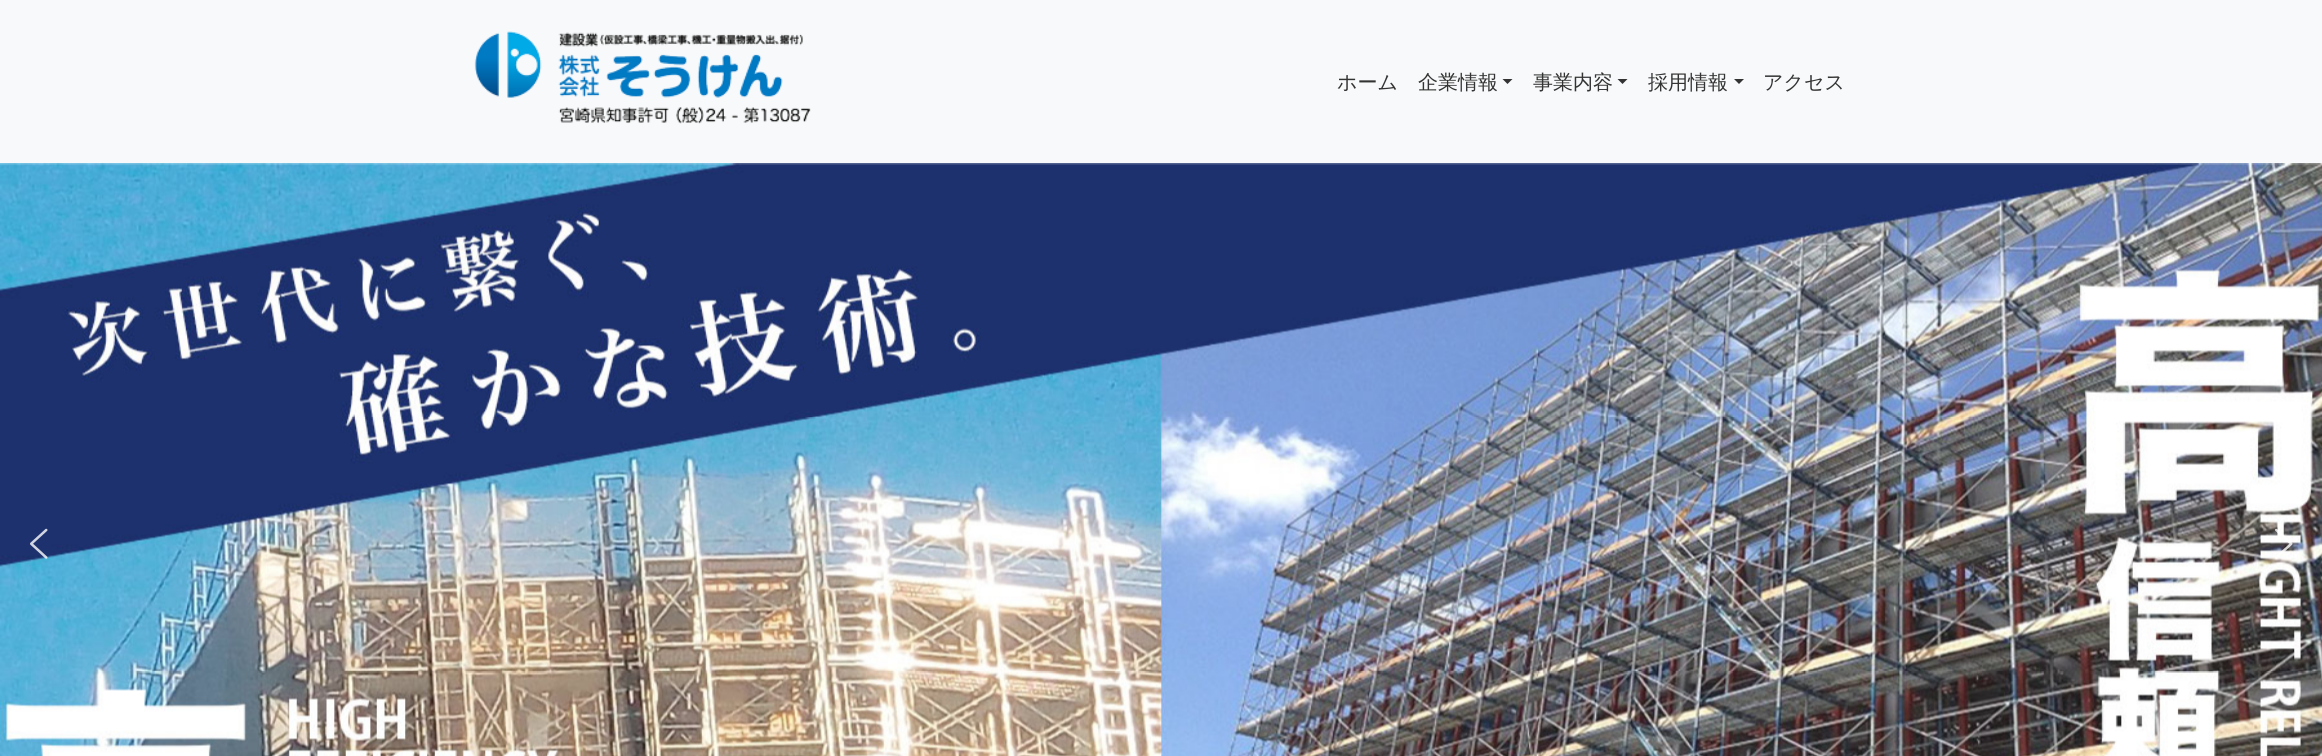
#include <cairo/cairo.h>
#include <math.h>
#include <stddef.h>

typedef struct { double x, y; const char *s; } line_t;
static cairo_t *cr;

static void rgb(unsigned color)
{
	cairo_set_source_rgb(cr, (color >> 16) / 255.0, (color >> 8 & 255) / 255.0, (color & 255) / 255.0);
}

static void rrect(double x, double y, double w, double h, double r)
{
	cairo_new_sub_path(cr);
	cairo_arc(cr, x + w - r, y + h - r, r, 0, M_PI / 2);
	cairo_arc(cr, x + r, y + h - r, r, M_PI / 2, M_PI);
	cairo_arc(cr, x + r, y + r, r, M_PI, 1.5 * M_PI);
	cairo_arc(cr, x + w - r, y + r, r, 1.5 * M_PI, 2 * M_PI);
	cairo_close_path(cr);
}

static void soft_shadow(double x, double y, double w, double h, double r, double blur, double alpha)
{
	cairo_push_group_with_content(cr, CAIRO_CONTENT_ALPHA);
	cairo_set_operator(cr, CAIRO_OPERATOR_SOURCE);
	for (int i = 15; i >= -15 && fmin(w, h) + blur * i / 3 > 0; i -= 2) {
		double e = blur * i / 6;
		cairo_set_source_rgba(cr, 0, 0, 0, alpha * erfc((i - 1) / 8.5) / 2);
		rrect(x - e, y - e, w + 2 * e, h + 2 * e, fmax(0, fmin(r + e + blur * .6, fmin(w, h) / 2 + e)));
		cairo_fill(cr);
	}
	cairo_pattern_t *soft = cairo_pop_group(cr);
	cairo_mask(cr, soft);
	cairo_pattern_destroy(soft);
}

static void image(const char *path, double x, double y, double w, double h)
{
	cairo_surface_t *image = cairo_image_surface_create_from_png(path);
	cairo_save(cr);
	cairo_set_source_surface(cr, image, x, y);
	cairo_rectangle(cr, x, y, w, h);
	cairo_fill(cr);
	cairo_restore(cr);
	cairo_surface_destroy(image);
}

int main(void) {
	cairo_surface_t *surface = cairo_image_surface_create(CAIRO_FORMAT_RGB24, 2322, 756);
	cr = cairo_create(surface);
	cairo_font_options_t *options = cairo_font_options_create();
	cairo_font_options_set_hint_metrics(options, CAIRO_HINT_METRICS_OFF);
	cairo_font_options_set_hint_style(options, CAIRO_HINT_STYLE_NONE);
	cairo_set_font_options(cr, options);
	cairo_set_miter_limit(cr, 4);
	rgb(0xffffff);
	cairo_paint(cr);
	rgb(0x000000);
	soft_shadow(0, 10, 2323, 164, 0, 10, 0.05);
	rgb(0xf8f9fa);
	cairo_rectangle(cr, 0, 0, 2322, 164);
	cairo_fill(cr);
	image("img/1.png", 474, 31, 337, 93);
	rgb(0x333333);
	cairo_new_path(cr);
	cairo_move_to(cr, 1502.5, 79);
	cairo_line_to(cr, 1512.5, 79);
	cairo_line_to(cr, 1507.5, 84);
	cairo_close_path(cr);
	cairo_fill(cr);
	cairo_new_path(cr);
	cairo_move_to(cr, 1617.5, 79);
	cairo_line_to(cr, 1627.5, 79);
	cairo_line_to(cr, 1622.5, 84);
	cairo_close_path(cr);
	cairo_fill(cr);
	cairo_new_path(cr);
	cairo_move_to(cr, 1734, 79);
	cairo_line_to(cr, 1744, 79);
	cairo_line_to(cr, 1739, 84);
	cairo_close_path(cr);
	cairo_fill(cr);
	image("img/2.png", 0, 163, 2322, 593);
	image("img/3.png", 30, 528, 18, 31);
	image("img/4.png", 2275, 528, 18, 31);
	cairo_select_font_face(cr, "WenQuanYi Zen Hei Medium", CAIRO_FONT_SLANT_NORMAL, CAIRO_FONT_WEIGHT_NORMAL);
	cairo_set_font_size(cr, 20);
	{
		static const line_t items[] = {
			{1337, 89, "ホーム"},
			{1418, 89, "企業情報"},
			{1533, 89, "事業内容"},
			{1648, 89, "採用情報"},
			{1763, 89, "アクセス"},
		};
		for (size_t i = 0; i < sizeof items / sizeof *items; i++) {
			cairo_move_to(cr, items[i].x, items[i].y);
			cairo_show_text(cr, items[i].s);
		}
	}
	cairo_surface_write_to_png(surface, "page.png");
	cairo_font_options_destroy(options);
	cairo_destroy(cr);
	cairo_surface_destroy(surface);
	return 0;
}
